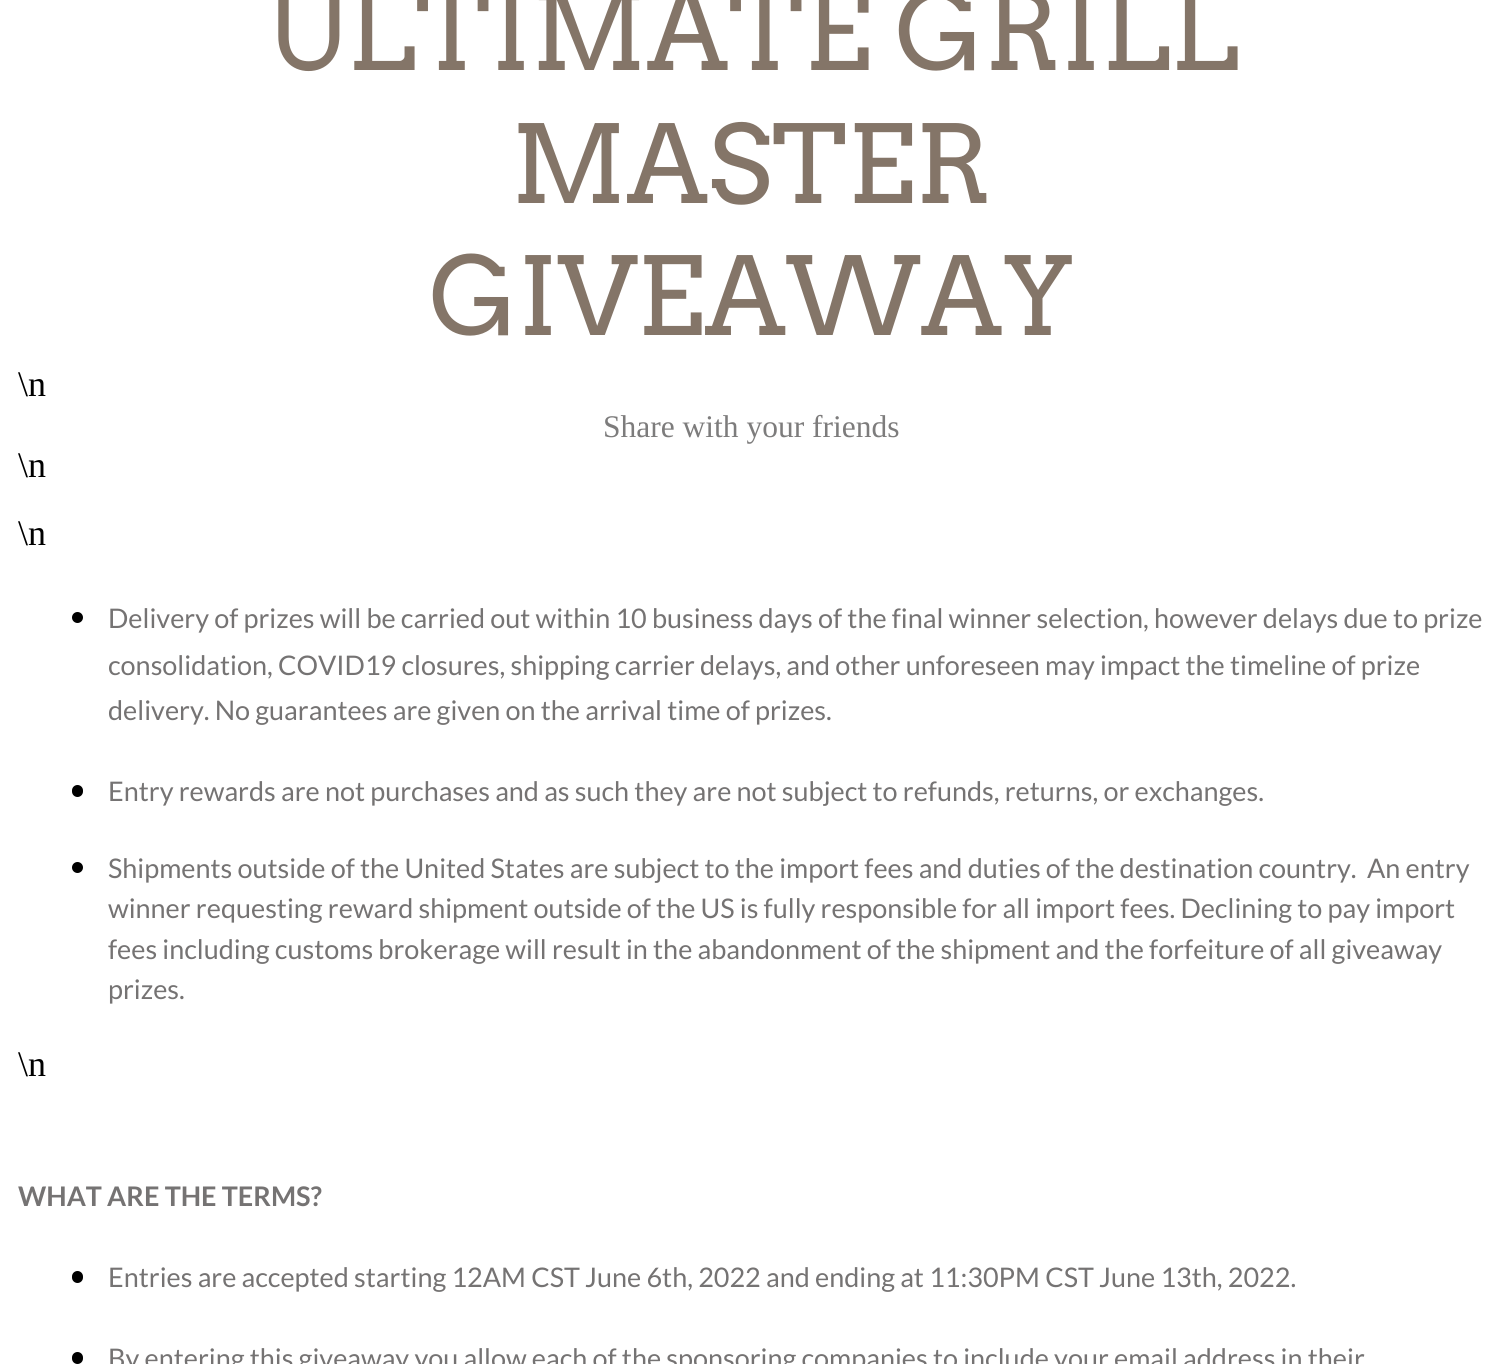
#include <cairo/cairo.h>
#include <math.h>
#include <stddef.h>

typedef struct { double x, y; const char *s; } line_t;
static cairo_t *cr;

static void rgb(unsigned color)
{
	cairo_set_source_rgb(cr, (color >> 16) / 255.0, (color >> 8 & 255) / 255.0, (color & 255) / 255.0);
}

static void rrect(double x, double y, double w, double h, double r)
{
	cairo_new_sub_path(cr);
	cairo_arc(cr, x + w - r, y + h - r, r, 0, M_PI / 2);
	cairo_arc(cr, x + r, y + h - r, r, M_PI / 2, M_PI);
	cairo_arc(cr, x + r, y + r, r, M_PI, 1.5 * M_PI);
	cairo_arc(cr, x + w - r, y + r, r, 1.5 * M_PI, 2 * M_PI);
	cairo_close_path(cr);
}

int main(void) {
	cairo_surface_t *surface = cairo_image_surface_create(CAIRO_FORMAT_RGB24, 1501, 1364);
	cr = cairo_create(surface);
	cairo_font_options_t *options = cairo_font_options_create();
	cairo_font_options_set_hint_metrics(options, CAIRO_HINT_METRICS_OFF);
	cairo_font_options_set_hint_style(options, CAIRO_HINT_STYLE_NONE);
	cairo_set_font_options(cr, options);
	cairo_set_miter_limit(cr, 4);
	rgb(0xffffff);
	cairo_paint(cr);
	rgb(0x000000);
	cairo_arc(cr, 77.5, 617.5, 5.5, 0, 2 * M_PI);
	cairo_fill(cr);
	rrect(72, 785, 11, 12, 5.5);
	cairo_fill(cr);
	cairo_arc(cr, 77.5, 867.5, 5.5, 0, 2 * M_PI);
	cairo_fill(cr);
	rrect(72, 1271, 11, 12, 5.5);
	cairo_fill(cr);
	rrect(72, 1352, 11, 12, 5.5);
	cairo_fill(cr);
	cairo_select_font_face(cr, "Arvo", CAIRO_FONT_SLANT_NORMAL, CAIRO_FONT_WEIGHT_NORMAL);
	cairo_set_font_size(cr, 108);
	rgb(0x847568);
	{
		static const line_t items[] = {
			{265, 70, "ULTIMATE GRILL"},
			{511, 203, "MASTER"},
			{429, 335, "GIVEAWAY"},
		};
		for (size_t i = 0; i < sizeof items / sizeof *items; i++) {
			cairo_move_to(cr, items[i].x, items[i].y);
			cairo_show_text(cr, items[i].s);
		}
	}
	cairo_select_font_face(cr, "Liberation Serif", CAIRO_FONT_SLANT_NORMAL, CAIRO_FONT_WEIGHT_NORMAL);
	cairo_set_font_size(cr, 36);
	rgb(0x000000);
	cairo_move_to(cr, 18, 396);
	cairo_show_text(cr, "\\n");
	cairo_set_font_size(cr, 31.5);
	rgb(0x7d7c7c);
	cairo_move_to(cr, 603, 437);
	cairo_show_text(cr, "Share with your friends");
	cairo_set_font_size(cr, 36);
	rgb(0x000000);
	cairo_move_to(cr, 18, 477);
	cairo_show_text(cr, "\\n");
	cairo_move_to(cr, 18, 545);
	cairo_show_text(cr, "\\n");
	cairo_select_font_face(cr, "Lato", CAIRO_FONT_SLANT_NORMAL, CAIRO_FONT_WEIGHT_NORMAL);
	cairo_set_font_size(cr, 27);
	rgb(0x757373);
	{
		static const line_t items[] = {
			{108, 628, "Delivery of prizes will be carried out within 10 business days of the final winner selection, however delays due to prize"},
			{108, 675, "consolidation, COVID19 closures, shipping carrier delays, and other unforeseen may impact the timeline of prize"},
			{108, 720, "delivery. No guarantees are given on the arrival time of prizes."},
			{108, 801, "Entry rewards are not purchases and as such they are not subject to refunds, returns, or exchanges."},
			{108, 878, "Shipments outside of the United States are subject to the import fees and duties of the destination country.  An entry"},
			{108, 918, "winner requesting reward shipment outside of the US is fully responsible for all import fees. Declining to pay import"},
			{108, 959, "fees including customs brokerage will result in the abandonment of the shipment and the forfeiture of all giveaway"},
			{108, 999, "prizes."},
		};
		for (size_t i = 0; i < sizeof items / sizeof *items; i++) {
			cairo_move_to(cr, items[i].x, items[i].y);
			cairo_show_text(cr, items[i].s);
		}
	}
	cairo_select_font_face(cr, "Liberation Serif", CAIRO_FONT_SLANT_NORMAL, CAIRO_FONT_WEIGHT_NORMAL);
	cairo_set_font_size(cr, 36);
	rgb(0x000000);
	cairo_move_to(cr, 18, 1076);
	cairo_show_text(cr, "\\n");
	cairo_select_font_face(cr, "Lato", CAIRO_FONT_SLANT_NORMAL, CAIRO_FONT_WEIGHT_BOLD);
	cairo_set_font_size(cr, 27);
	rgb(0x757373);
	cairo_move_to(cr, 18, 1206);
	cairo_show_text(cr, "WHAT ARE THE TERMS?");
	cairo_select_font_face(cr, "Lato", CAIRO_FONT_SLANT_NORMAL, CAIRO_FONT_WEIGHT_NORMAL);
	cairo_move_to(cr, 108, 1287);
	cairo_show_text(cr, "Entries are accepted starting 12AM CST June 6th, 2022 and ending at 11:30PM CST June 13th, 2022.");
	cairo_move_to(cr, 108, 1368);
	cairo_show_text(cr, "By entering this giveaway you allow each of the sponsoring companies to include your email address in their");
	cairo_surface_write_to_png(surface, "page.png");
	cairo_font_options_destroy(options);
	cairo_destroy(cr);
	cairo_surface_destroy(surface);
	return 0;
}
